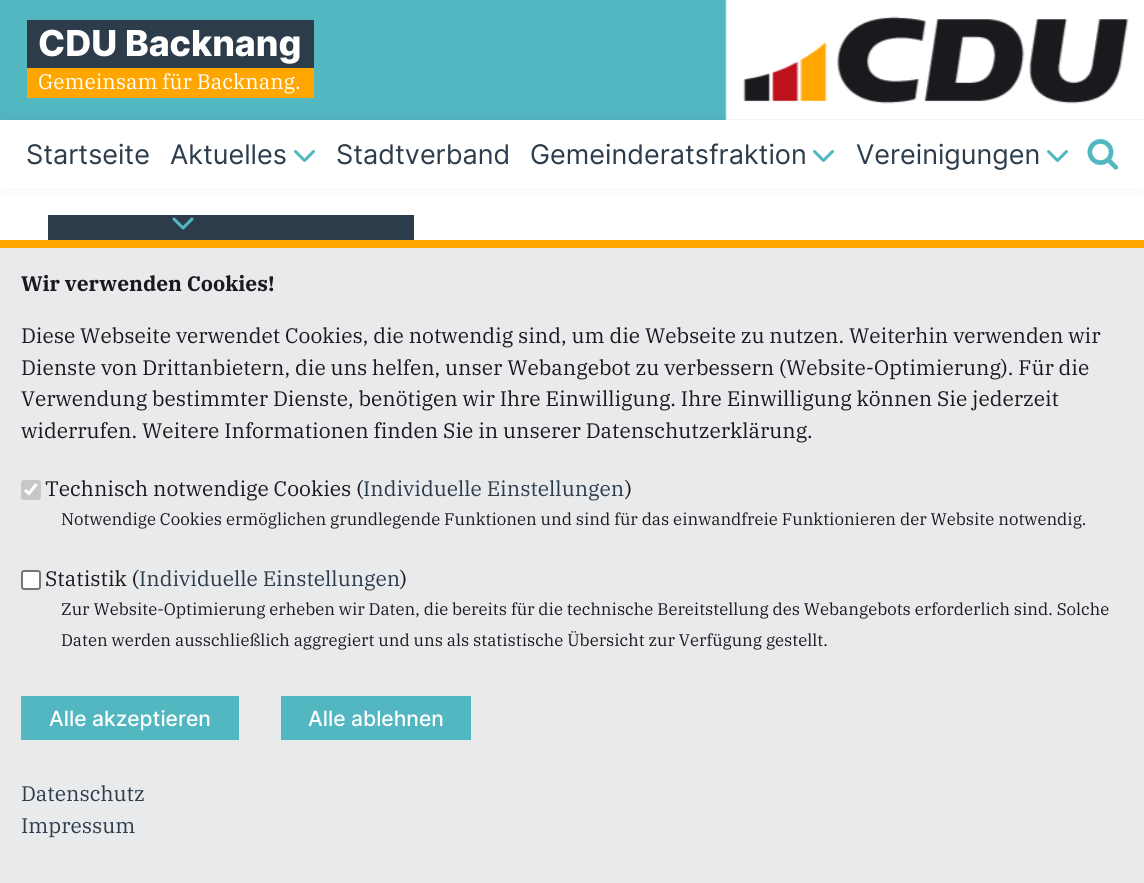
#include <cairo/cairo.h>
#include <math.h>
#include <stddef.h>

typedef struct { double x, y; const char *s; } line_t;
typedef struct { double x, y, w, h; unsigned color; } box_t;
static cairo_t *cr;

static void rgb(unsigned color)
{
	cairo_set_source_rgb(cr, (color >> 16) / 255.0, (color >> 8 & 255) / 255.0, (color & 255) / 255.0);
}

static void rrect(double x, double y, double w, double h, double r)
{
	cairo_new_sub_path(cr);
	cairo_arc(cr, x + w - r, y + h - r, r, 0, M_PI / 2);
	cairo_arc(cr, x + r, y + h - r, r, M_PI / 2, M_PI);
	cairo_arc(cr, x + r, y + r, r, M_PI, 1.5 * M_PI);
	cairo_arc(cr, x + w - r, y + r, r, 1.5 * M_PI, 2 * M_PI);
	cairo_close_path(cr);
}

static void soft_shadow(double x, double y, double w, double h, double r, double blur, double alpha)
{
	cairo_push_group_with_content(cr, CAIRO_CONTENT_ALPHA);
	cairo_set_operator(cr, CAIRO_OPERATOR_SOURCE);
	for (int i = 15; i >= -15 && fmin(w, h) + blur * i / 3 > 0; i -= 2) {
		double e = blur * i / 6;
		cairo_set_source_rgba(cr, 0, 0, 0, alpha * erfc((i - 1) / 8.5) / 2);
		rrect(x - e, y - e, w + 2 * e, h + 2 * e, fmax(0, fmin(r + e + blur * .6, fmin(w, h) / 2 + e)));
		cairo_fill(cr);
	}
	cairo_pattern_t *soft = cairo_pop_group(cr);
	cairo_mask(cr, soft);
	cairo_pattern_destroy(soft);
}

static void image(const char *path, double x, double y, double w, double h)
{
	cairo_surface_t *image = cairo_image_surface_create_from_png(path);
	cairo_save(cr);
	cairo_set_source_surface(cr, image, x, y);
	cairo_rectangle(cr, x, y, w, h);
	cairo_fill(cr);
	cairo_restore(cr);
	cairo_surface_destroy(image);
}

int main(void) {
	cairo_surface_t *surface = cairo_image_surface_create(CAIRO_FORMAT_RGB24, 1144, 883);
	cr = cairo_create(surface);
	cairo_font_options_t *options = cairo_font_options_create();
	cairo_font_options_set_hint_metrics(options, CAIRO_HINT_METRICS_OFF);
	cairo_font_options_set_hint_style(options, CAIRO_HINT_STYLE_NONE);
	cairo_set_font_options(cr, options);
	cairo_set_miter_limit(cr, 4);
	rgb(0xffffff);
	cairo_paint(cr);
	rgb(0x52b7c1);
	cairo_rectangle(cr, 0, 0, 1144, 120);
	cairo_fill(cr);
	rgb(0x2d3c4b);
	cairo_rectangle(cr, 27, 20, 287, 48);
	cairo_fill(cr);
	rgb(0x000000);
	soft_shadow(0, 120, 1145, 68, 0, 7.5, 0.05);
	rgb(0xffa600);
	cairo_rectangle(cr, 27, 68, 287, 30);
	cairo_fill(cr);
	image("img/1.png", 725, 0, 419, 120);
	rgb(0xffffff);
	cairo_rectangle(cr, 0, 120, 1144, 68);
	cairo_fill(cr);
	image("img/2.png", 294, 150, 21, 12);
	image("img/2.png", 813, 150, 21, 12);
	image("img/2.png", 1047, 150, 21, 12);
	rgb(0x2d3c4b);
	cairo_rectangle(cr, 48, 215, 198, 25);
	cairo_fill(cr);
	image("img/3.png", 172, 217, 22, 13);
	image("img/4.png", 1087, 139, 32, 31);
	{
		static const box_t items[] = {
			{246, 215, 168, 25, 0x2d3c4b},
			{0, 248, 1144, 635, 0xe9eaec},
			{0, 240, 1144, 8, 0xffa600},
		};
		for (size_t i = 0; i < sizeof items / sizeof *items; i++) {
			rgb(items[i].color);
			cairo_rectangle(cr, items[i].x, items[i].y, items[i].w, items[i].h);
			cairo_fill(cr);
		}
	}
	rgb(0xc7c7c9);
	rrect(21, 480, 20, 20, 3);
	cairo_fill(cr);
	cairo_new_path(cr);
	cairo_move_to(cr, 25, 490);
	cairo_line_to(cr, 29, 493.5);
	cairo_line_to(cr, 36.5, 484);
	rgb(0xffffff);
	cairo_set_line_width(cr, 3.1);
	cairo_stroke(cr);
	rrect(22, 571, 18, 18, 2);
	cairo_fill_preserve(cr);
	rgb(0x767676);
	cairo_set_line_width(cr, 2);
	cairo_stroke(cr);
	rgb(0x52b7c1);
	cairo_rectangle(cr, 21, 696, 218, 44);
	cairo_fill(cr);
	cairo_rectangle(cr, 281, 696, 190, 44);
	cairo_fill(cr);
	cairo_select_font_face(cr, "Inter ExtraBold", CAIRO_FONT_SLANT_NORMAL, CAIRO_FONT_WEIGHT_NORMAL);
	cairo_set_font_size(cr, 35.75);
	rgb(0xffffff);
	cairo_move_to(cr, 38, 56);
	cairo_show_text(cr, "CDU Backnang");
	cairo_select_font_face(cr, "IBM Plex Serif", CAIRO_FONT_SLANT_NORMAL, CAIRO_FONT_WEIGHT_NORMAL);
	cairo_set_font_size(cr, 21);
	cairo_move_to(cr, 38, 89);
	cairo_show_text(cr, "Gemeinsam für Backnang.");
	cairo_select_font_face(cr, "Inter", CAIRO_FONT_SLANT_NORMAL, CAIRO_FONT_WEIGHT_NORMAL);
	cairo_set_font_size(cr, 27);
	rgb(0x2d3c4b);
	{
		static const line_t items[] = {
			{26, 164, "Startseite"},
			{170, 164, "Aktuelles"},
			{336, 164, "Stadtverband"},
			{530, 164, "Gemeinderatsfraktion"},
			{856, 164, "Vereinigungen"},
		};
		for (size_t i = 0; i < sizeof items / sizeof *items; i++) {
			cairo_move_to(cr, items[i].x, items[i].y);
			cairo_show_text(cr, items[i].s);
		}
	}
	cairo_select_font_face(cr, "IBM Plex Serif", CAIRO_FONT_SLANT_NORMAL, CAIRO_FONT_WEIGHT_BOLD);
	cairo_set_font_size(cr, 21);
	rgb(0x1b191d);
	cairo_move_to(cr, 21, 291);
	cairo_show_text(cr, "Wir verwenden Cookies!");
	cairo_select_font_face(cr, "IBM Plex Serif", CAIRO_FONT_SLANT_NORMAL, CAIRO_FONT_WEIGHT_NORMAL);
	{
		static const line_t items[] = {
			{21, 343, "Diese Webseite verwendet Cookies, die notwendig sind, um die Webseite zu nutzen. Weiterhin verwenden wir"},
			{21, 375, "Dienste von Drittanbietern, die uns helfen, unser Webangebot zu verbessern (Website-Optimierung). Für die"},
			{21, 406, "Verwendung bestimmter Dienste, benötigen wir Ihre Einwilligung. Ihre Einwilligung können Sie jederzeit"},
			{21, 438, "widerrufen. Weitere Informationen finden Sie in unserer Datenschutzerklärung."},
			{45, 496, "Technisch notwendige Cookies ("},
		};
		for (size_t i = 0; i < sizeof items / sizeof *items; i++) {
			cairo_move_to(cr, items[i].x, items[i].y);
			cairo_show_text(cr, items[i].s);
		}
	}
	rgb(0x2d3c4b);
	cairo_move_to(cr, 363, 496);
	cairo_show_text(cr, "Individuelle Einstellungen");
	rgb(0x1b191d);
	cairo_move_to(cr, 625, 496);
	cairo_show_text(cr, ")");
	cairo_set_font_size(cr, 16.8);
	cairo_move_to(cr, 61, 525);
	cairo_show_text(cr, "Notwendige Cookies ermöglichen grundlegende Funktionen und sind für das einwandfreie Funktionieren der Website notwendig.");
	cairo_set_font_size(cr, 21);
	cairo_move_to(cr, 45, 586);
	cairo_show_text(cr, "Statistik (");
	rgb(0x2d3c4b);
	cairo_move_to(cr, 139, 586);
	cairo_show_text(cr, "Individuelle Einstellungen");
	rgb(0x1b191d);
	cairo_move_to(cr, 400, 586);
	cairo_show_text(cr, ")");
	cairo_set_font_size(cr, 16.8);
	cairo_move_to(cr, 61, 615);
	cairo_show_text(cr, "Zur Website-Optimierung erheben wir Daten, die bereits für die technische Bereitstellung des Webangebots erforderlich sind. Solche");
	cairo_move_to(cr, 61, 646);
	cairo_show_text(cr, "Daten werden ausschließlich aggregiert und uns als statistische Übersicht zur Verfügung gestellt.");
	cairo_select_font_face(cr, "Inter Medium", CAIRO_FONT_SLANT_NORMAL, CAIRO_FONT_WEIGHT_NORMAL);
	cairo_set_font_size(cr, 21);
	rgb(0xffffff);
	cairo_move_to(cr, 49, 726);
	cairo_show_text(cr, "Alle akzeptieren");
	cairo_move_to(cr, 308, 726);
	cairo_show_text(cr, "Alle ablehnen");
	cairo_select_font_face(cr, "IBM Plex Serif", CAIRO_FONT_SLANT_NORMAL, CAIRO_FONT_WEIGHT_NORMAL);
	rgb(0x2d3c4b);
	cairo_move_to(cr, 21, 801);
	cairo_show_text(cr, "Datenschutz");
	cairo_move_to(cr, 21, 833);
	cairo_show_text(cr, "Impressum");
	cairo_surface_write_to_png(surface, "page.png");
	cairo_font_options_destroy(options);
	cairo_destroy(cr);
	cairo_surface_destroy(surface);
	return 0;
}
